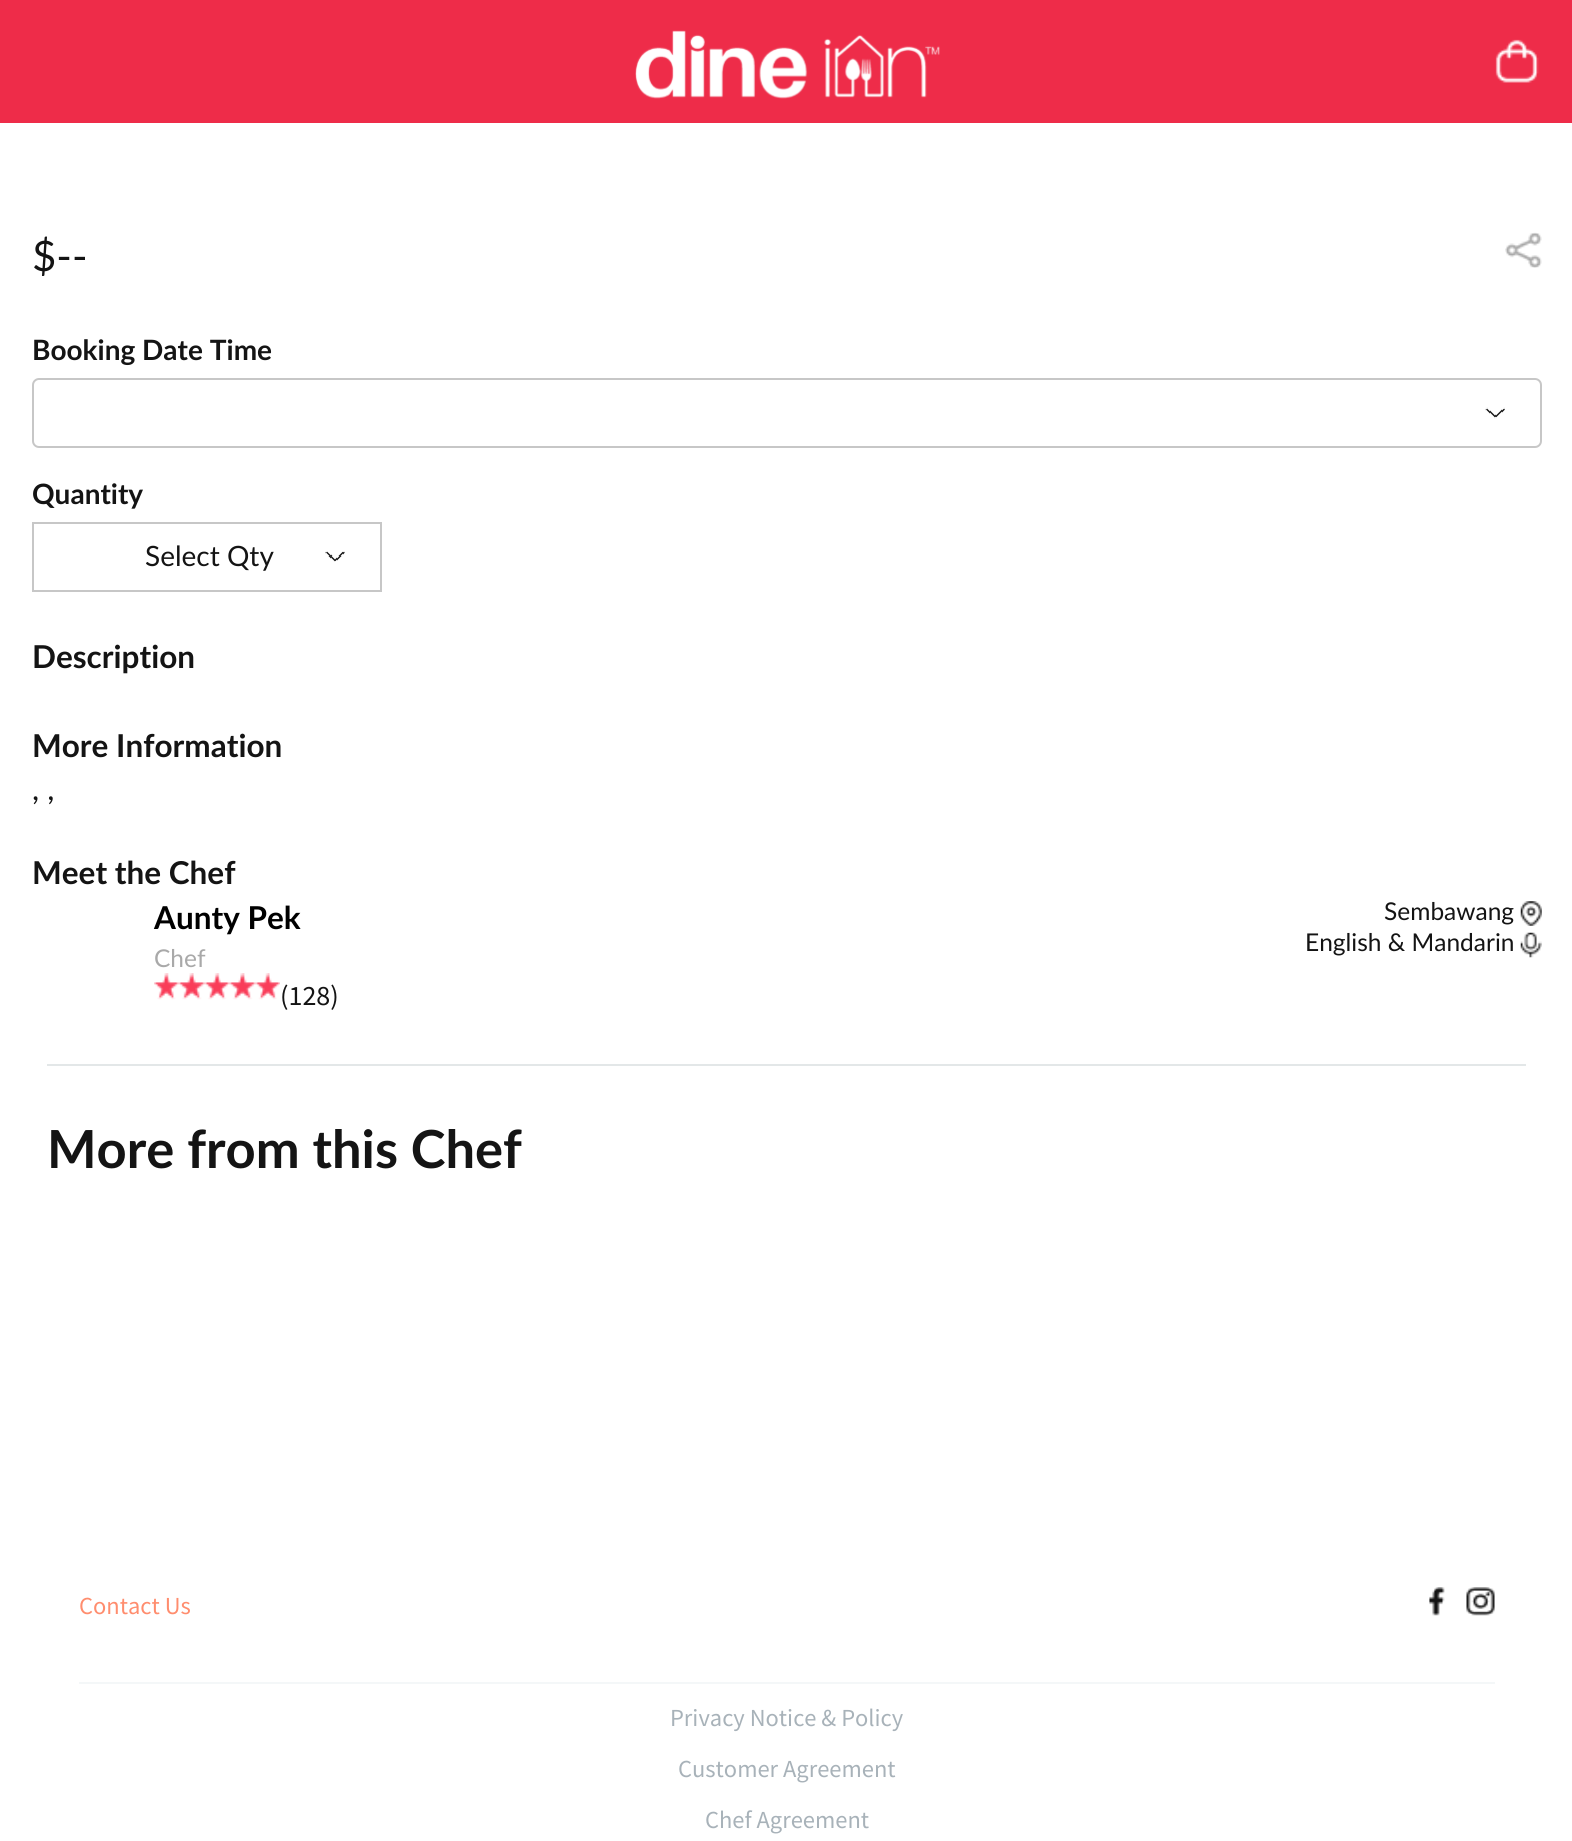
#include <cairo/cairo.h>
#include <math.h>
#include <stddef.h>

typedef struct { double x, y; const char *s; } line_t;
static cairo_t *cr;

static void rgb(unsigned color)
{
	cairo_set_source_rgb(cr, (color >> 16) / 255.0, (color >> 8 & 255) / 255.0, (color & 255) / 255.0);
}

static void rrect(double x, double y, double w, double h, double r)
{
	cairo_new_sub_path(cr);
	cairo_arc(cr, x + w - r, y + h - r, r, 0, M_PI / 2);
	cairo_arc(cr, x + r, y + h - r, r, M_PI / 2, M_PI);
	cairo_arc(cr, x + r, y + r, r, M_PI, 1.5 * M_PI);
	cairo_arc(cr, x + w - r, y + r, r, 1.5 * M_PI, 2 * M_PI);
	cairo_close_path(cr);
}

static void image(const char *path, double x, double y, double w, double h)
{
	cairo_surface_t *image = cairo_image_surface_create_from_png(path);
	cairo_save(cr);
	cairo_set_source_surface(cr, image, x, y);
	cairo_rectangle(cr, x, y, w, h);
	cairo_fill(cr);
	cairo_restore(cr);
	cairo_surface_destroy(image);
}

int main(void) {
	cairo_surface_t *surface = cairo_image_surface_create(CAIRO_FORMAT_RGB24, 1572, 1841);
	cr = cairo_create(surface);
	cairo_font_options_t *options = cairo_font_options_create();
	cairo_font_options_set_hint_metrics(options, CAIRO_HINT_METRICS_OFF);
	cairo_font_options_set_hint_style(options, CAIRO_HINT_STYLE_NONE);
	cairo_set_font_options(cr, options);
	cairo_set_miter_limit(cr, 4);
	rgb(0xffffff);
	cairo_paint(cr);
	rgb(0xee2c49);
	cairo_rectangle(cr, 0, 0, 1572, 123);
	cairo_fill(cr);
	image("img/1.png", 635, 30, 305, 69);
	image("img/2.png", 1495, 39, 44, 44);
	image("img/3.png", 1505, 232, 37, 36);
	rrect(33, 379, 1508, 68, 6);
	rgb(0xc7c7c7);
	cairo_stroke(cr);
	image("img/4.png", 1485, 407, 20, 12);
	cairo_rectangle(cr, 33, 523, 348, 68);
	cairo_stroke(cr);
	image("img/5.png", 325, 551, 20, 11);
	image("img/6.png", 154, 973, 25, 27);
	image("img/7.png", 178, 973, 27, 27);
	image("img/8.png", 204, 973, 26, 27);
	image("img/9.png", 229, 973, 27, 27);
	image("img/10.png", 255, 973, 25, 27);
	image("img/11.png", 1520, 901, 22, 25);
	image("img/12.png", 1520, 932, 22, 26);
	rgb(0xe3e7e8);
	cairo_rectangle(cr, 47, 1064, 1479, 2);
	cairo_fill(cr);
	rgb(0xf4f7f8);
	cairo_rectangle(cr, 79, 1682, 1416, 2);
	cairo_fill(cr);
	image("img/13.png", 1429, 1587, 16, 29);
	image("img/14.png", 1466, 1587, 29, 29);
	cairo_select_font_face(cr, "Lato", CAIRO_FONT_SLANT_NORMAL, CAIRO_FONT_WEIGHT_NORMAL);
	cairo_set_font_size(cr, 42);
	rgb(0x141414);
	cairo_move_to(cr, 32, 271);
	cairo_show_text(cr, "$--");
	cairo_select_font_face(cr, "Lato", CAIRO_FONT_SLANT_NORMAL, CAIRO_FONT_WEIGHT_BOLD);
	cairo_set_font_size(cr, 28);
	cairo_move_to(cr, 32, 360);
	cairo_show_text(cr, "Booking Date Time");
	cairo_move_to(cr, 32, 504);
	cairo_show_text(cr, "Quantity");
	cairo_select_font_face(cr, "Lato", CAIRO_FONT_SLANT_NORMAL, CAIRO_FONT_WEIGHT_NORMAL);
	cairo_move_to(cr, 145, 566);
	cairo_show_text(cr, "Select Qty");
	cairo_select_font_face(cr, "Lato", CAIRO_FONT_SLANT_NORMAL, CAIRO_FONT_WEIGHT_BOLD);
	cairo_set_font_size(cr, 31.5);
	cairo_move_to(cr, 32, 668);
	cairo_show_text(cr, "Description");
	cairo_move_to(cr, 32, 757);
	cairo_show_text(cr, "More Information");
	cairo_select_font_face(cr, "Lato", CAIRO_FONT_SLANT_NORMAL, CAIRO_FONT_WEIGHT_NORMAL);
	cairo_move_to(cr, 32, 800);
	cairo_show_text(cr, ", ,");
	cairo_select_font_face(cr, "Lato", CAIRO_FONT_SLANT_NORMAL, CAIRO_FONT_WEIGHT_BOLD);
	cairo_move_to(cr, 32, 884);
	cairo_show_text(cr, "Meet the Chef");
	rgb(0x000000);
	cairo_move_to(cr, 154, 929);
	cairo_show_text(cr, "Aunty Pek");
	cairo_select_font_face(cr, "Lato", CAIRO_FONT_SLANT_NORMAL, CAIRO_FONT_WEIGHT_NORMAL);
	cairo_set_font_size(cr, 24.5);
	rgb(0xa9a9a9);
	cairo_move_to(cr, 154, 967);
	cairo_show_text(cr, "Chef");
	cairo_select_font_face(cr, "Source Sans Pro", CAIRO_FONT_SLANT_NORMAL, CAIRO_FONT_WEIGHT_NORMAL);
	cairo_set_font_size(cr, 28);
	rgb(0x141414);
	cairo_move_to(cr, 280, 1005);
	cairo_show_text(cr, "(128)");
	cairo_select_font_face(cr, "Lato", CAIRO_FONT_SLANT_NORMAL, CAIRO_FONT_WEIGHT_NORMAL);
	cairo_set_font_size(cr, 24.5);
	cairo_move_to(cr, 1384, 920);
	cairo_show_text(cr, "Sembawang");
	cairo_move_to(cr, 1305, 951);
	cairo_show_text(cr, "English & Mandarin");
	cairo_select_font_face(cr, "Lato", CAIRO_FONT_SLANT_NORMAL, CAIRO_FONT_WEIGHT_BOLD);
	cairo_set_font_size(cr, 52.5);
	cairo_move_to(cr, 47, 1168);
	cairo_show_text(cr, "More from this Chef");
	cairo_select_font_face(cr, "Source Sans Pro", CAIRO_FONT_SLANT_NORMAL, CAIRO_FONT_WEIGHT_NORMAL);
	cairo_set_font_size(cr, 24.5);
	rgb(0xff8d6e);
	cairo_move_to(cr, 79, 1614);
	cairo_show_text(cr, "Contact Us");
	rgb(0xa8b2b9);
	{
		static const line_t items[] = {
			{670, 1726, "Privacy Notice & Policy"},
			{678, 1777, "Customer Agreement"},
			{705, 1828, "Chef Agreement"},
		};
		for (size_t i = 0; i < sizeof items / sizeof *items; i++) {
			cairo_move_to(cr, items[i].x, items[i].y);
			cairo_show_text(cr, items[i].s);
		}
	}
	cairo_surface_write_to_png(surface, "page.png");
	cairo_font_options_destroy(options);
	cairo_destroy(cr);
	cairo_surface_destroy(surface);
	return 0;
}
